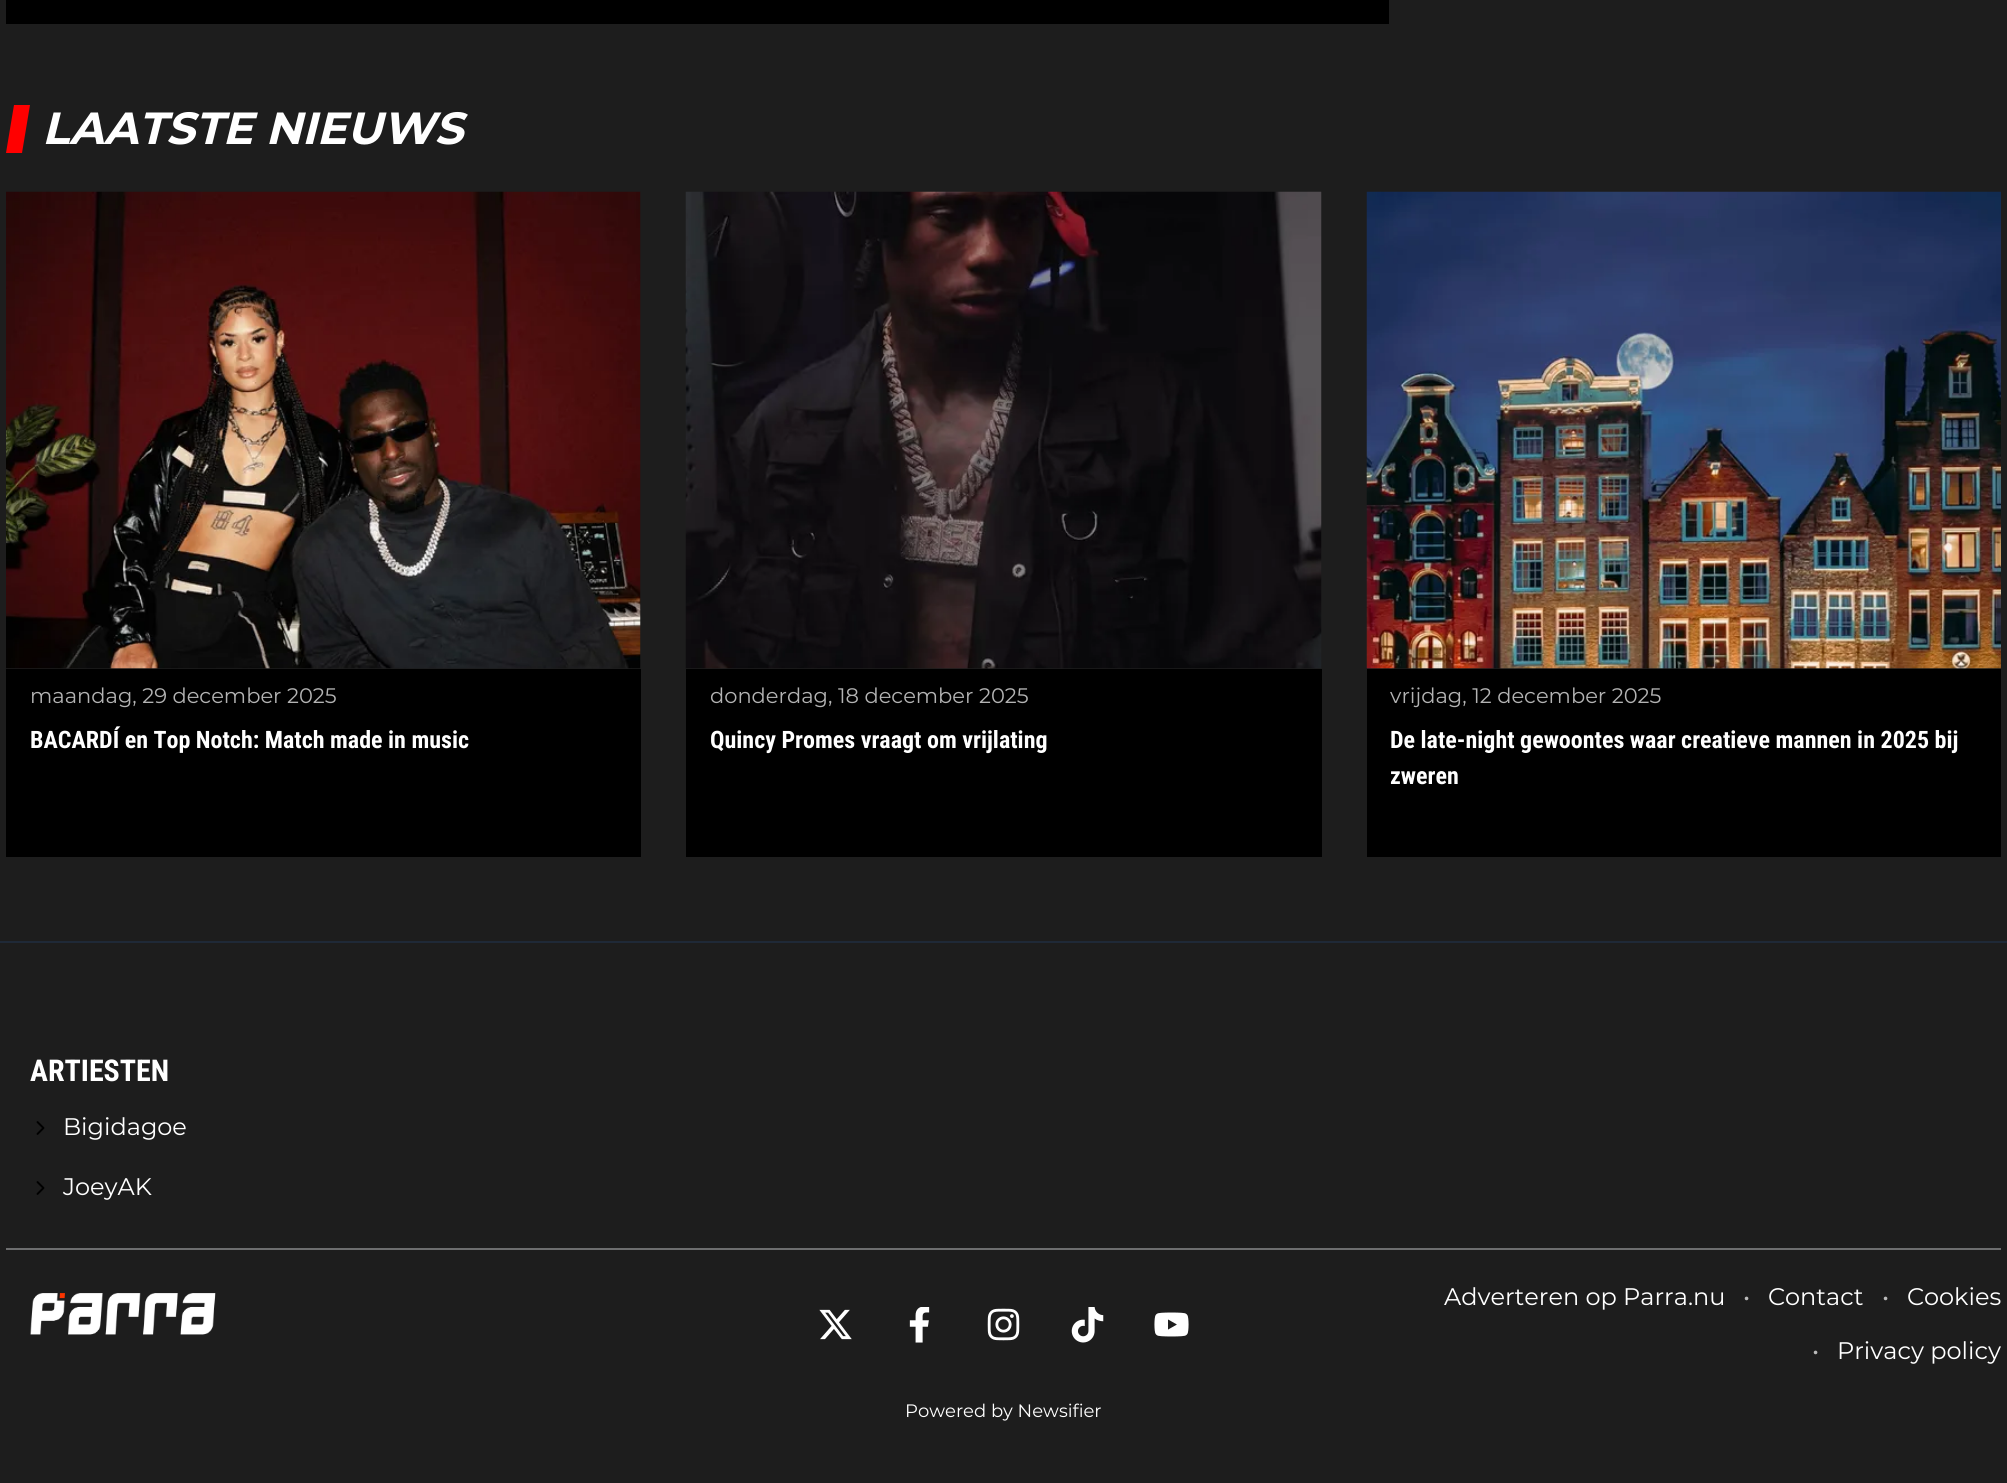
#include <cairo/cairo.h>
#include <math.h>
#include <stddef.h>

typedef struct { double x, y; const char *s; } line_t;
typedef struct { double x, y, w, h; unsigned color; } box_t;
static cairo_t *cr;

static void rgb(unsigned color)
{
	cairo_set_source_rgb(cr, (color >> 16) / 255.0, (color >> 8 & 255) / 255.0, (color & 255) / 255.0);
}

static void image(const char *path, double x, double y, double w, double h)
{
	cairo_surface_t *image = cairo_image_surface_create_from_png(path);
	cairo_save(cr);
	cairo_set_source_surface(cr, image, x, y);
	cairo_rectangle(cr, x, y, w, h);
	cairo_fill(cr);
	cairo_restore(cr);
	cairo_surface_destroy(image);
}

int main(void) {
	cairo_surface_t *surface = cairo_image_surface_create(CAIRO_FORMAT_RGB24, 2007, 1483);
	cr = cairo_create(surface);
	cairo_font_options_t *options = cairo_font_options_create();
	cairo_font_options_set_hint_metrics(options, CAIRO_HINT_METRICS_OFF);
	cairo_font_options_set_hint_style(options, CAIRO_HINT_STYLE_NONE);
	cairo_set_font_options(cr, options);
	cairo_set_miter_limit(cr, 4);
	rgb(0x1d1d1d);
	cairo_paint(cr);
	rgb(0x000000);
	cairo_rectangle(cr, 6, 0, 1383, 24);
	cairo_fill(cr);
	rgb(0xff0000);
	cairo_new_path(cr);
	cairo_move_to(cr, 6, 153);
	cairo_line_to(cr, 14, 105);
	cairo_line_to(cr, 30, 105);
	cairo_line_to(cr, 22, 153);
	cairo_close_path(cr);
	cairo_fill(cr);
	image("img/1.png", 6, 191, 635, 478);
	rgb(0x000000);
	cairo_rectangle(cr, 6, 669, 635, 188);
	cairo_fill(cr);
	image("img/2.png", 685, 191, 637, 478);
	cairo_rectangle(cr, 686, 669, 636, 188);
	cairo_fill(cr);
	image("img/3.png", 1366, 191, 635, 478);
	{
		static const box_t items[] = {
			{1367, 669, 634, 188, 0x000000},
			{0, 941, 2007, 2, 0x1f2937},
			{6, 1248, 1995, 2, 0x6d6e6f},
		};
		for (size_t i = 0; i < sizeof items / sizeof *items; i++) {
			rgb(items[i].color);
			cairo_rectangle(cr, items[i].x, items[i].y, items[i].w, items[i].h);
			cairo_fill(cr);
		}
	}
	image("img/4.png", 36, 1121, 9, 14);
	image("img/4.png", 36, 1181, 9, 14);
	image("img/5.png", 30, 1293, 186, 42);
	image("img/6.png", 819, 1309, 33, 31);
	image("img/7.png", 909, 1307, 21, 36);
	image("img/8.png", 987, 1308, 33, 33);
	image("img/9.png", 1071, 1307, 33, 36);
	image("img/10.png", 1154, 1312, 35, 25);
	cairo_select_font_face(cr, "Montserrat", CAIRO_FONT_SLANT_ITALIC, CAIRO_FONT_WEIGHT_BOLD);
	cairo_set_font_size(cr, 45);
	rgb(0xffffff);
	cairo_move_to(cr, 42, 144);
	cairo_show_text(cr, "LAATSTE NIEUWS");
	cairo_select_font_face(cr, "Montserrat", CAIRO_FONT_SLANT_NORMAL, CAIRO_FONT_WEIGHT_NORMAL);
	cairo_set_font_size(cr, 21);
	rgb(0xb3b3b3);
	cairo_move_to(cr, 30, 703);
	cairo_show_text(cr, "maandag, 29 december 2025");
	cairo_select_font_face(cr, "Roboto Condensed", CAIRO_FONT_SLANT_NORMAL, CAIRO_FONT_WEIGHT_BOLD);
	cairo_set_font_size(cr, 24);
	rgb(0xffffff);
	cairo_move_to(cr, 30, 748);
	cairo_show_text(cr, "BACARDÍ en Top Notch: Match made in music");
	cairo_select_font_face(cr, "Montserrat", CAIRO_FONT_SLANT_NORMAL, CAIRO_FONT_WEIGHT_NORMAL);
	cairo_set_font_size(cr, 21);
	rgb(0xb3b3b3);
	cairo_move_to(cr, 710, 703);
	cairo_show_text(cr, "donderdag, 18 december 2025");
	cairo_select_font_face(cr, "Roboto Condensed", CAIRO_FONT_SLANT_NORMAL, CAIRO_FONT_WEIGHT_BOLD);
	cairo_set_font_size(cr, 24);
	rgb(0xffffff);
	cairo_move_to(cr, 710, 748);
	cairo_show_text(cr, "Quincy Promes vraagt om vrijlating");
	cairo_select_font_face(cr, "Montserrat", CAIRO_FONT_SLANT_NORMAL, CAIRO_FONT_WEIGHT_NORMAL);
	cairo_set_font_size(cr, 21);
	rgb(0xb3b3b3);
	cairo_move_to(cr, 1390, 703);
	cairo_show_text(cr, "vrijdag, 12 december 2025");
	cairo_select_font_face(cr, "Roboto Condensed", CAIRO_FONT_SLANT_NORMAL, CAIRO_FONT_WEIGHT_BOLD);
	cairo_set_font_size(cr, 24);
	rgb(0xffffff);
	cairo_move_to(cr, 1390, 748);
	cairo_show_text(cr, "De late-night gewoontes waar creatieve mannen in 2025 bij");
	cairo_move_to(cr, 1390, 784);
	cairo_show_text(cr, "zweren");
	cairo_set_font_size(cr, 30);
	cairo_move_to(cr, 30, 1081);
	cairo_show_text(cr, "ARTIESTEN");
	cairo_select_font_face(cr, "Montserrat", CAIRO_FONT_SLANT_NORMAL, CAIRO_FONT_WEIGHT_NORMAL);
	cairo_set_font_size(cr, 24);
	{
		static const line_t items[] = {
			{63, 1135, "Bigidagoe"},
			{63, 1195, "JoeyAK"},
			{1444, 1305, "Adverteren op Parra.nu"},
		};
		for (size_t i = 0; i < sizeof items / sizeof *items; i++) {
			cairo_move_to(cr, items[i].x, items[i].y);
			cairo_show_text(cr, items[i].s);
		}
	}
	rgb(0xbbbbbb);
	cairo_move_to(cr, 1743, 1305);
	cairo_show_text(cr, "•");
	rgb(0xffffff);
	cairo_move_to(cr, 1768, 1305);
	cairo_show_text(cr, "Contact");
	rgb(0xbbbbbb);
	cairo_move_to(cr, 1882, 1305);
	cairo_show_text(cr, "•");
	rgb(0xffffff);
	cairo_move_to(cr, 1907, 1305);
	cairo_show_text(cr, "Cookies");
	rgb(0xbbbbbb);
	cairo_move_to(cr, 1812, 1359);
	cairo_show_text(cr, "•");
	rgb(0xffffff);
	cairo_move_to(cr, 1837, 1359);
	cairo_show_text(cr, "Privacy policy");
	cairo_set_font_size(cr, 18);
	cairo_move_to(cr, 905, 1417);
	cairo_show_text(cr, "Powered by Newsifier");
	cairo_surface_write_to_png(surface, "page.png");
	cairo_font_options_destroy(options);
	cairo_destroy(cr);
	cairo_surface_destroy(surface);
	return 0;
}
